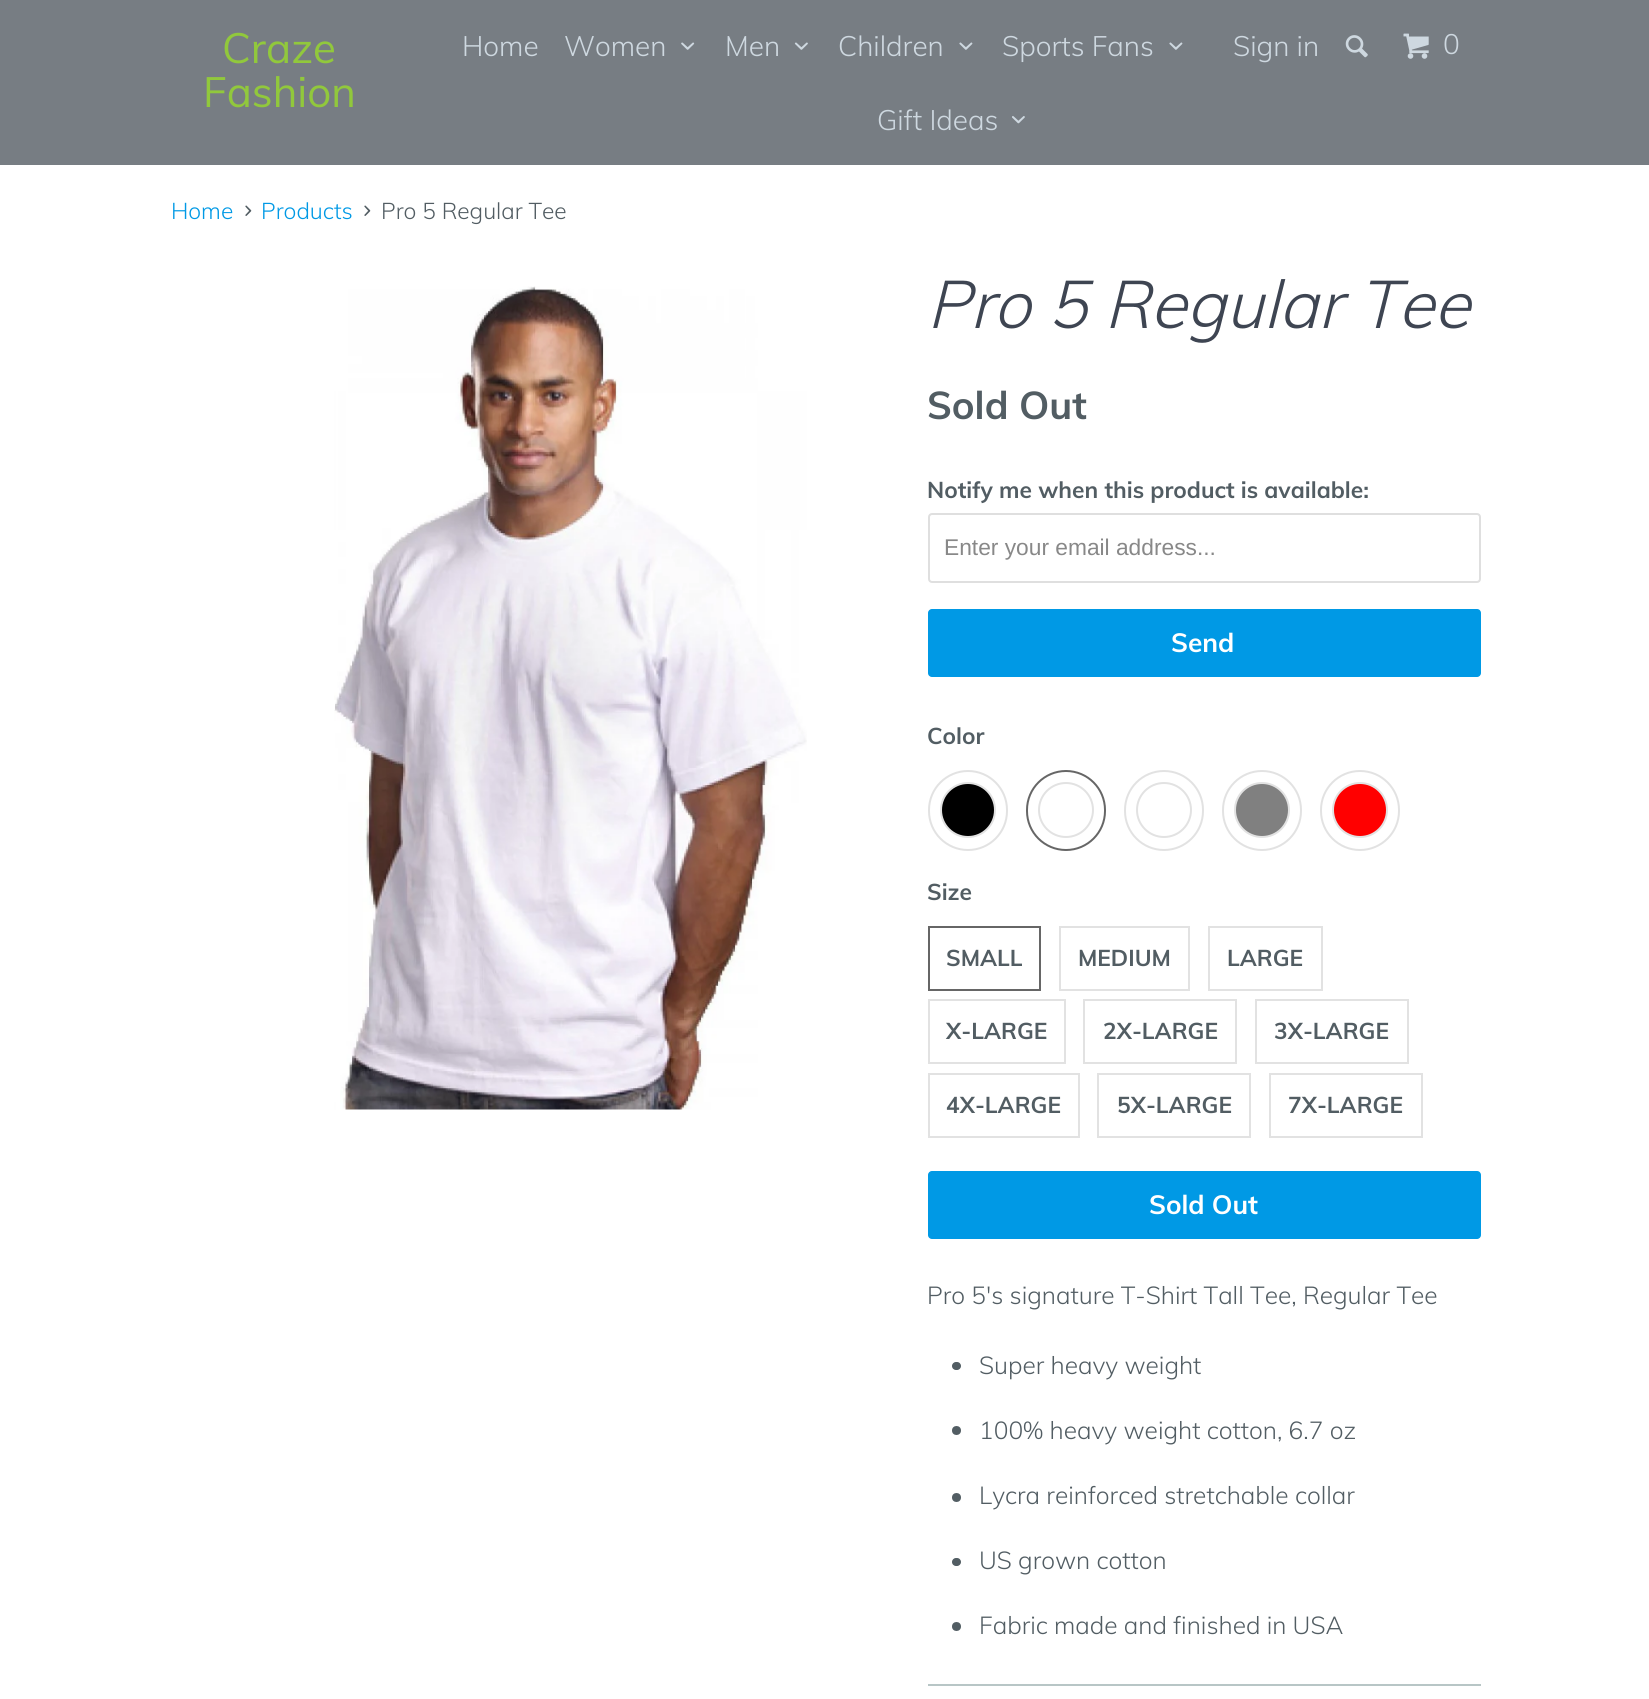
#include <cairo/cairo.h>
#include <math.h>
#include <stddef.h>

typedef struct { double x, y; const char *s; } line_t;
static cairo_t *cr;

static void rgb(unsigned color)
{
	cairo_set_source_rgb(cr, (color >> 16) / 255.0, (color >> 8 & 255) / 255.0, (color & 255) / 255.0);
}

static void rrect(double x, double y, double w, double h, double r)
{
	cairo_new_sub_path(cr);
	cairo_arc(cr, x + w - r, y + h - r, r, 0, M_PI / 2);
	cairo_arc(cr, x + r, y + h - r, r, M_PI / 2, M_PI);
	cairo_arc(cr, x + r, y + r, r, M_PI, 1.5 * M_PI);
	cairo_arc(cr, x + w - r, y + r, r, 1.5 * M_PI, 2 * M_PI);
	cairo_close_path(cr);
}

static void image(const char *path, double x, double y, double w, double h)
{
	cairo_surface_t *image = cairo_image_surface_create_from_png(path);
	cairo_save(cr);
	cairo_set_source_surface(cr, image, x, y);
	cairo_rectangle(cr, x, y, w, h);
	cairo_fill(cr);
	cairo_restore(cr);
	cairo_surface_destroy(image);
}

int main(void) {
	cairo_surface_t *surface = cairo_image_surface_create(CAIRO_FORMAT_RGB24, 1649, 1699);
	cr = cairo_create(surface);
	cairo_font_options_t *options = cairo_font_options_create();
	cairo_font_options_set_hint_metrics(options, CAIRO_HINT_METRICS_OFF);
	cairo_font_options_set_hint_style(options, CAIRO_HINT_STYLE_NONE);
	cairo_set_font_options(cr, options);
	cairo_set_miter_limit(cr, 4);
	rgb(0xffffff);
	cairo_paint(cr);
	rgb(0x777d83);
	cairo_rectangle(cr, 0, 0, 1649, 165);
	cairo_fill(cr);
	image("img/1.png", 681, 42, 14, 8);
	image("img/2.png", 794, 42, 14, 8);
	image("img/3.png", 959, 42, 14, 8);
	image("img/3.png", 1169, 42, 14, 8);
	image("img/4.png", 1012, 116, 13, 8);
	image("img/5.png", 1345, 35, 23, 23);
	image("img/6.png", 1403, 33, 26, 26);
	image("img/7.png", 245, 205, 7, 11);
	image("img/7.png", 364, 205, 7, 11);
	image("img/8.png", 334, 286, 473, 824);
	rrect(929, 514, 551, 68, 3);
	rgb(0xdfdfdf);
	cairo_stroke(cr);
	rgb(0x0099e5);
	rrect(928, 609, 553, 68, 4);
	cairo_fill(cr);
	rrect(929, 771, 78, 79, 39);
	rgb(0xe2e2e2);
	cairo_stroke(cr);
	rgb(0x000000);
	cairo_arc(cr, 968, 810, 27, 0, 2 * M_PI);
	cairo_fill_preserve(cr);
	rgb(0xe2e2e2);
	cairo_stroke(cr);
	rrect(1027, 771, 78, 79, 39);
	rgb(0x666666);
	cairo_stroke(cr);
	cairo_arc(cr, 1066, 810, 27, 0, 2 * M_PI);
	rgb(0xe2e2e2);
	cairo_stroke(cr);
	rrect(1125, 771, 78, 79, 39);
	cairo_stroke(cr);
	cairo_arc(cr, 1164, 810, 27, 0, 2 * M_PI);
	cairo_stroke(cr);
	rrect(1223, 771, 78, 79, 39);
	cairo_stroke(cr);
	rgb(0x808080);
	cairo_arc(cr, 1262, 810, 27, 0, 2 * M_PI);
	cairo_fill_preserve(cr);
	rgb(0xe2e2e2);
	cairo_stroke(cr);
	rrect(1321, 771, 78, 79, 39);
	cairo_stroke(cr);
	rgb(0xff0000);
	cairo_arc(cr, 1360, 810, 27, 0, 2 * M_PI);
	cairo_fill_preserve(cr);
	rgb(0xe2e2e2);
	cairo_stroke(cr);
	cairo_rectangle(cr, 929, 927, 111, 63);
	rgb(0x666666);
	cairo_stroke(cr);
	cairo_rectangle(cr, 1060, 927, 129, 63);
	rgb(0xe2e2e2);
	cairo_stroke(cr);
	cairo_rectangle(cr, 1209, 927, 113, 63);
	cairo_stroke(cr);
	cairo_rectangle(cr, 929, 1000, 136, 63);
	cairo_stroke(cr);
	cairo_rectangle(cr, 1084, 1000, 152, 63);
	cairo_stroke(cr);
	cairo_rectangle(cr, 1256, 1000, 152, 63);
	cairo_stroke(cr);
	cairo_rectangle(cr, 929, 1074, 150, 63);
	cairo_stroke(cr);
	cairo_rectangle(cr, 1098, 1074, 152, 63);
	cairo_stroke(cr);
	cairo_rectangle(cr, 1270, 1074, 152, 63);
	cairo_stroke(cr);
	rgb(0x0099e5);
	rrect(928, 1171, 553, 68, 4);
	cairo_fill(cr);
	rgb(0x525d63);
	rrect(952, 1362, 9, 8, 4);
	cairo_fill(cr);
	cairo_arc(cr, 956.5, 1430.5, 4.5, 0, 2 * M_PI);
	cairo_fill(cr);
	cairo_arc(cr, 956.5, 1497.5, 4.5, 0, 2 * M_PI);
	cairo_fill(cr);
	rrect(952, 1558, 9, 8, 4);
	cairo_fill(cr);
	cairo_arc(cr, 956.5, 1626.5, 4.5, 0, 2 * M_PI);
	cairo_fill(cr);
	rgb(0xb8c6c6);
	cairo_rectangle(cr, 928, 1684, 553, 2);
	cairo_fill(cr);
	cairo_select_font_face(cr, "Muli", CAIRO_FONT_SLANT_NORMAL, CAIRO_FONT_WEIGHT_NORMAL);
	cairo_set_font_size(cr, 42);
	rgb(0x91c83c);
	cairo_move_to(cr, 222, 63);
	cairo_show_text(cr, "Craze");
	cairo_move_to(cr, 203, 107);
	cairo_show_text(cr, "Fashion");
	cairo_select_font_face(cr, "Muli Light", CAIRO_FONT_SLANT_NORMAL, CAIRO_FONT_WEIGHT_NORMAL);
	cairo_set_font_size(cr, 28);
	rgb(0xced8e0);
	{
		static const line_t items[] = {
			{462, 56, "Home"},
			{564, 56, "Women"},
			{725, 56, "Men"},
			{838, 56, "Children"},
			{1002, 56, "Sports Fans"},
			{877, 130, "Gift Ideas"},
			{1233, 56, "Sign in"},
			{1443, 54, "0"},
		};
		for (size_t i = 0; i < sizeof items / sizeof *items; i++) {
			cairo_move_to(cr, items[i].x, items[i].y);
			cairo_show_text(cr, items[i].s);
		}
	}
	cairo_set_font_size(cr, 22.75);
	rgb(0x0099e5);
	cairo_move_to(cr, 171, 219);
	cairo_show_text(cr, "Home");
	cairo_move_to(cr, 261, 219);
	cairo_show_text(cr, "Products");
	rgb(0x525d63);
	cairo_move_to(cr, 381, 219);
	cairo_show_text(cr, "Pro 5 Regular Tee");
	cairo_select_font_face(cr, "Muli Light", CAIRO_FONT_SLANT_ITALIC, CAIRO_FONT_WEIGHT_NORMAL);
	cairo_set_font_size(cr, 66.5);
	rgb(0x3e4552);
	cairo_move_to(cr, 927, 328);
	cairo_show_text(cr, "Pro 5 Regular Tee");
	cairo_select_font_face(cr, "Muli", CAIRO_FONT_SLANT_NORMAL, CAIRO_FONT_WEIGHT_BOLD);
	cairo_set_font_size(cr, 38.5);
	rgb(0x525d63);
	cairo_move_to(cr, 927, 419);
	cairo_show_text(cr, "Sold Out");
	cairo_set_font_size(cr, 22.75);
	cairo_move_to(cr, 927, 498);
	cairo_show_text(cr, "Notify me when this product is available:");
	cairo_select_font_face(cr, "Liberation Sans", CAIRO_FONT_SLANT_NORMAL, CAIRO_FONT_WEIGHT_NORMAL);
	rgb(0x888888);
	cairo_move_to(cr, 944, 555);
	cairo_show_text(cr, "Enter your email address...");
	cairo_select_font_face(cr, "Muli", CAIRO_FONT_SLANT_NORMAL, CAIRO_FONT_WEIGHT_BOLD);
	cairo_set_font_size(cr, 26.25);
	rgb(0xffffff);
	cairo_move_to(cr, 1171, 652);
	cairo_show_text(cr, "Send");
	cairo_set_font_size(cr, 22.75);
	rgb(0x525d63);
	{
		static const line_t items[] = {
			{927, 744, "Color"},
			{927, 900, "Size"},
			{946, 966, "SMALL"},
			{1078, 966, "MEDIUM"},
			{1227, 966, "LARGE"},
			{946, 1039, "X-LARGE"},
			{1103, 1039, "2X-LARGE"},
			{1274, 1039, "3X-LARGE"},
			{946, 1113, "4X-LARGE"},
			{1117, 1113, "5X-LARGE"},
			{1288, 1113, "7X-LARGE"},
		};
		for (size_t i = 0; i < sizeof items / sizeof *items; i++) {
			cairo_move_to(cr, items[i].x, items[i].y);
			cairo_show_text(cr, items[i].s);
		}
	}
	cairo_set_font_size(cr, 26.25);
	rgb(0xffffff);
	cairo_move_to(cr, 1149, 1214);
	cairo_show_text(cr, "Sold Out");
	cairo_select_font_face(cr, "Muli Light", CAIRO_FONT_SLANT_NORMAL, CAIRO_FONT_WEIGHT_NORMAL);
	cairo_set_font_size(cr, 24.5);
	rgb(0x525d63);
	{
		static const line_t items[] = {
			{927, 1304, "Pro 5's signature T-Shirt Tall Tee, Regular Tee"},
			{979, 1374, "Super heavy weight"},
			{979, 1439, "100% heavy weight cotton, 6.7 oz"},
			{979, 1504, "Lycra reinforced stretchable collar"},
			{979, 1569, "US grown cotton"},
			{979, 1634, "Fabric made and finished in USA"},
		};
		for (size_t i = 0; i < sizeof items / sizeof *items; i++) {
			cairo_move_to(cr, items[i].x, items[i].y);
			cairo_show_text(cr, items[i].s);
		}
	}
	cairo_surface_write_to_png(surface, "page.png");
	cairo_font_options_destroy(options);
	cairo_destroy(cr);
	cairo_surface_destroy(surface);
	return 0;
}
